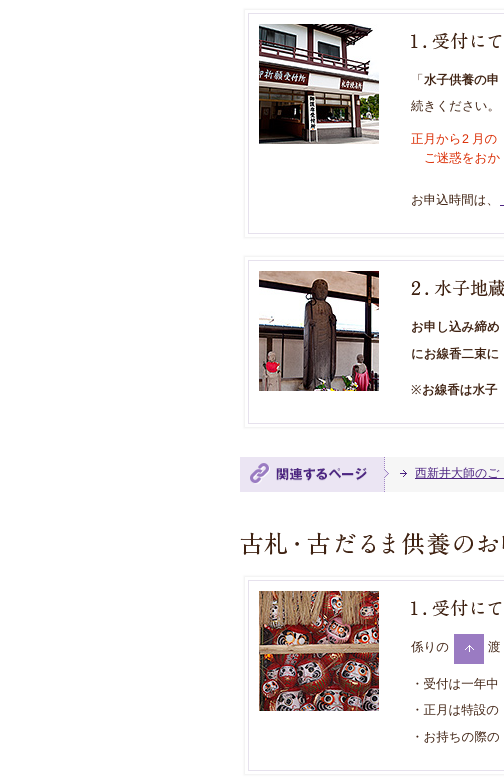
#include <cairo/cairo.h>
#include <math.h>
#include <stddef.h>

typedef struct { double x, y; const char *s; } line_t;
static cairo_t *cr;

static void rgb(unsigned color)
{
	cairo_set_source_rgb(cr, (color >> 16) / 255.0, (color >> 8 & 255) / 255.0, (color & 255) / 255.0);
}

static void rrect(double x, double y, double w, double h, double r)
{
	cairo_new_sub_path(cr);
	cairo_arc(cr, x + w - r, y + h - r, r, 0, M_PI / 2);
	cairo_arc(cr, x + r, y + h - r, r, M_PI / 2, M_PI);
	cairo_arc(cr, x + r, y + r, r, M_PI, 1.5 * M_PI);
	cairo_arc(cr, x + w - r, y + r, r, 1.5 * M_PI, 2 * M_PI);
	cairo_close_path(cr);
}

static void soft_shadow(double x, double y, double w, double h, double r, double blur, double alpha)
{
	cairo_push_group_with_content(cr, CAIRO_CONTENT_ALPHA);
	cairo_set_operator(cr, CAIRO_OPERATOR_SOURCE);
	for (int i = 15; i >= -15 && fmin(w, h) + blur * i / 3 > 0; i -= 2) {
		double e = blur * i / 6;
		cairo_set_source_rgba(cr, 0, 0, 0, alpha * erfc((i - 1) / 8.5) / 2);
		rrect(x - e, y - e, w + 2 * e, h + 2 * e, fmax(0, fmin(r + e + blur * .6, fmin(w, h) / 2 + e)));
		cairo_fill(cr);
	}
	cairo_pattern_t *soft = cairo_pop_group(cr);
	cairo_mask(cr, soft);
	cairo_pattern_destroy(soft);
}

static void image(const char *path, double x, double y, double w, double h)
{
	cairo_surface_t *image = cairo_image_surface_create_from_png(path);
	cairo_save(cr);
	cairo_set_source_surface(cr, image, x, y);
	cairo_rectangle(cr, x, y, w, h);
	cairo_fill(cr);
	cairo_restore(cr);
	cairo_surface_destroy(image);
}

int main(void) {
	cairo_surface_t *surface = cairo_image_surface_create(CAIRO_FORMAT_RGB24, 504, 778);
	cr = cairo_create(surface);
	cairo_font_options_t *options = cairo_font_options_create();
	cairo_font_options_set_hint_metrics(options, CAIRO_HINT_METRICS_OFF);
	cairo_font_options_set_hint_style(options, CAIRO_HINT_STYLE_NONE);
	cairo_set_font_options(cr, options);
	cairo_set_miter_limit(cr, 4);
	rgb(0xffffff);
	cairo_paint(cr);
	cairo_save(cr);
	cairo_set_fill_rule(cr, CAIRO_FILL_RULE_EVEN_ODD);
	cairo_new_path(cr);
	cairo_move_to(cr, 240, 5);
	cairo_line_to(cr, 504, 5);
	cairo_line_to(cr, 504, 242);
	cairo_line_to(cr, 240, 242);
	cairo_close_path(cr);
	cairo_move_to(cr, 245, 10);
	cairo_line_to(cr, 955, 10);
	cairo_line_to(cr, 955, 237);
	cairo_line_to(cr, 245, 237);
	cairo_close_path(cr);
	cairo_clip(cr);
	rgb(0xf0f0f0);
	soft_shadow(244, 9, 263, 229, 0, 1, 1);
	cairo_restore(cr);
	cairo_rectangle(cr, 248.5, 13.5, 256, 220);
	rgb(0xe6e1ed);
	cairo_set_line_width(cr, 1);
	cairo_stroke(cr);
	image("img/1.png", 259, 24, 120, 120);
	image("img/2.png", 411, 32, 91, 18);
	rgb(0x4d2482);
	cairo_rectangle(cr, 500, 205, 4, 1);
	cairo_fill(cr);
	cairo_save(cr);
	cairo_set_fill_rule(cr, CAIRO_FILL_RULE_EVEN_ODD);
	cairo_new_path(cr);
	cairo_move_to(cr, 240, 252);
	cairo_line_to(cr, 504, 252);
	cairo_line_to(cr, 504, 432);
	cairo_line_to(cr, 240, 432);
	cairo_close_path(cr);
	cairo_move_to(cr, 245, 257);
	cairo_line_to(cr, 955, 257);
	cairo_line_to(cr, 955, 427);
	cairo_line_to(cr, 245, 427);
	cairo_close_path(cr);
	cairo_clip(cr);
	rgb(0xf0f0f0);
	soft_shadow(244, 256, 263, 172, 0, 1, 1);
	cairo_restore(cr);
	cairo_rectangle(cr, 248.5, 260.5, 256, 163);
	rgb(0xe6e1ed);
	cairo_stroke(cr);
	image("img/3.png", 259, 271, 120, 120);
	image("img/4.png", 411, 279, 93, 18);
	rgb(0xf6f6f6);
	cairo_rectangle(cr, 389, 457, 115, 35);
	cairo_fill(cr);
	image("img/5.png", 240, 457, 149, 35);
	image("img/6.png", 400, 470, 7, 7);
	rgb(0x4d2482);
	cairo_rectangle(cr, 415, 478, 89, 1);
	cairo_fill(cr);
	image("img/7.png", 240, 532, 264, 23);
	cairo_save(cr);
	cairo_set_fill_rule(cr, CAIRO_FILL_RULE_EVEN_ODD);
	cairo_new_path(cr);
	cairo_move_to(cr, 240, 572);
	cairo_line_to(cr, 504, 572);
	cairo_line_to(cr, 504, 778);
	cairo_line_to(cr, 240, 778);
	cairo_close_path(cr);
	cairo_move_to(cr, 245, 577);
	cairo_line_to(cr, 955, 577);
	cairo_line_to(cr, 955, 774);
	cairo_line_to(cr, 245, 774);
	cairo_close_path(cr);
	cairo_clip(cr);
	rgb(0xf0f0f0);
	soft_shadow(244, 576, 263, 199, 0, 1, 1);
	cairo_restore(cr);
	cairo_rectangle(cr, 248.5, 580.5, 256, 190);
	rgb(0xe6e1ed);
	cairo_stroke(cr);
	image("img/8.png", 259, 591, 120, 120);
	image("img/2.png", 411, 599, 91, 18);
	image("img/9.png", 454, 634, 30, 30);
	cairo_select_font_face(cr, "WenQuanYi Zen Hei Medium", CAIRO_FONT_SLANT_NORMAL, CAIRO_FONT_WEIGHT_NORMAL);
	cairo_set_font_size(cr, 12.5);
	rgb(0x3f2212);
	cairo_move_to(cr, 411, 84);
	cairo_show_text(cr, "「");
	cairo_select_font_face(cr, "WenQuanYi Zen Hei", CAIRO_FONT_SLANT_NORMAL, CAIRO_FONT_WEIGHT_BOLD);
	cairo_move_to(cr, 424, 84);
	cairo_show_text(cr, "水子供養の申");
	cairo_select_font_face(cr, "WenQuanYi Zen Hei Medium", CAIRO_FONT_SLANT_NORMAL, CAIRO_FONT_WEIGHT_NORMAL);
	cairo_move_to(cr, 411, 110);
	cairo_show_text(cr, "続きください。");
	rgb(0xda2a00);
	cairo_move_to(cr, 411, 143);
	cairo_show_text(cr, "正月から");
	cairo_select_font_face(cr, "Liberation Sans", CAIRO_FONT_SLANT_NORMAL, CAIRO_FONT_WEIGHT_NORMAL);
	cairo_move_to(cr, 462, 143);
	cairo_show_text(cr, "2");
	cairo_select_font_face(cr, "WenQuanYi Zen Hei Medium", CAIRO_FONT_SLANT_NORMAL, CAIRO_FONT_WEIGHT_NORMAL);
	cairo_move_to(cr, 472, 143);
	cairo_show_text(cr, "月の");
	cairo_move_to(cr, 424, 162);
	cairo_show_text(cr, "ご迷惑をおか");
	rgb(0x3f2212);
	cairo_move_to(cr, 411, 204);
	cairo_show_text(cr, "お申込時間は、");
	cairo_select_font_face(cr, "WenQuanYi Zen Hei", CAIRO_FONT_SLANT_NORMAL, CAIRO_FONT_WEIGHT_BOLD);
	cairo_move_to(cr, 411, 331);
	cairo_show_text(cr, "お申し込み締め");
	cairo_move_to(cr, 411, 358);
	cairo_show_text(cr, "にお線香二束に");
	cairo_select_font_face(cr, "Noto Sans", CAIRO_FONT_SLANT_NORMAL, CAIRO_FONT_WEIGHT_NORMAL);
	cairo_move_to(cr, 411, 394);
	cairo_show_text(cr, "※");
	cairo_select_font_face(cr, "WenQuanYi Zen Hei", CAIRO_FONT_SLANT_NORMAL, CAIRO_FONT_WEIGHT_BOLD);
	cairo_move_to(cr, 422, 394);
	cairo_show_text(cr, "お線香は水子");
	cairo_select_font_face(cr, "WenQuanYi Zen Hei Medium", CAIRO_FONT_SLANT_NORMAL, CAIRO_FONT_WEIGHT_NORMAL);
	cairo_set_font_size(cr, 12);
	rgb(0x4d2482);
	cairo_move_to(cr, 415, 477);
	cairo_show_text(cr, "西新井大師のご");
	cairo_set_font_size(cr, 12.5);
	rgb(0x3f2212);
	{
		static const line_t items[] = {
			{411, 651, "係りの"},
			{488, 651, "渡"},
			{411, 688, "・受付は一年中"},
			{411, 714, "・正月は特設の"},
			{411, 741, "・お持ちの際の"},
		};
		for (size_t i = 0; i < sizeof items / sizeof *items; i++) {
			cairo_move_to(cr, items[i].x, items[i].y);
			cairo_show_text(cr, items[i].s);
		}
	}
	cairo_surface_write_to_png(surface, "page.png");
	cairo_font_options_destroy(options);
	cairo_destroy(cr);
	cairo_surface_destroy(surface);
	return 0;
}
